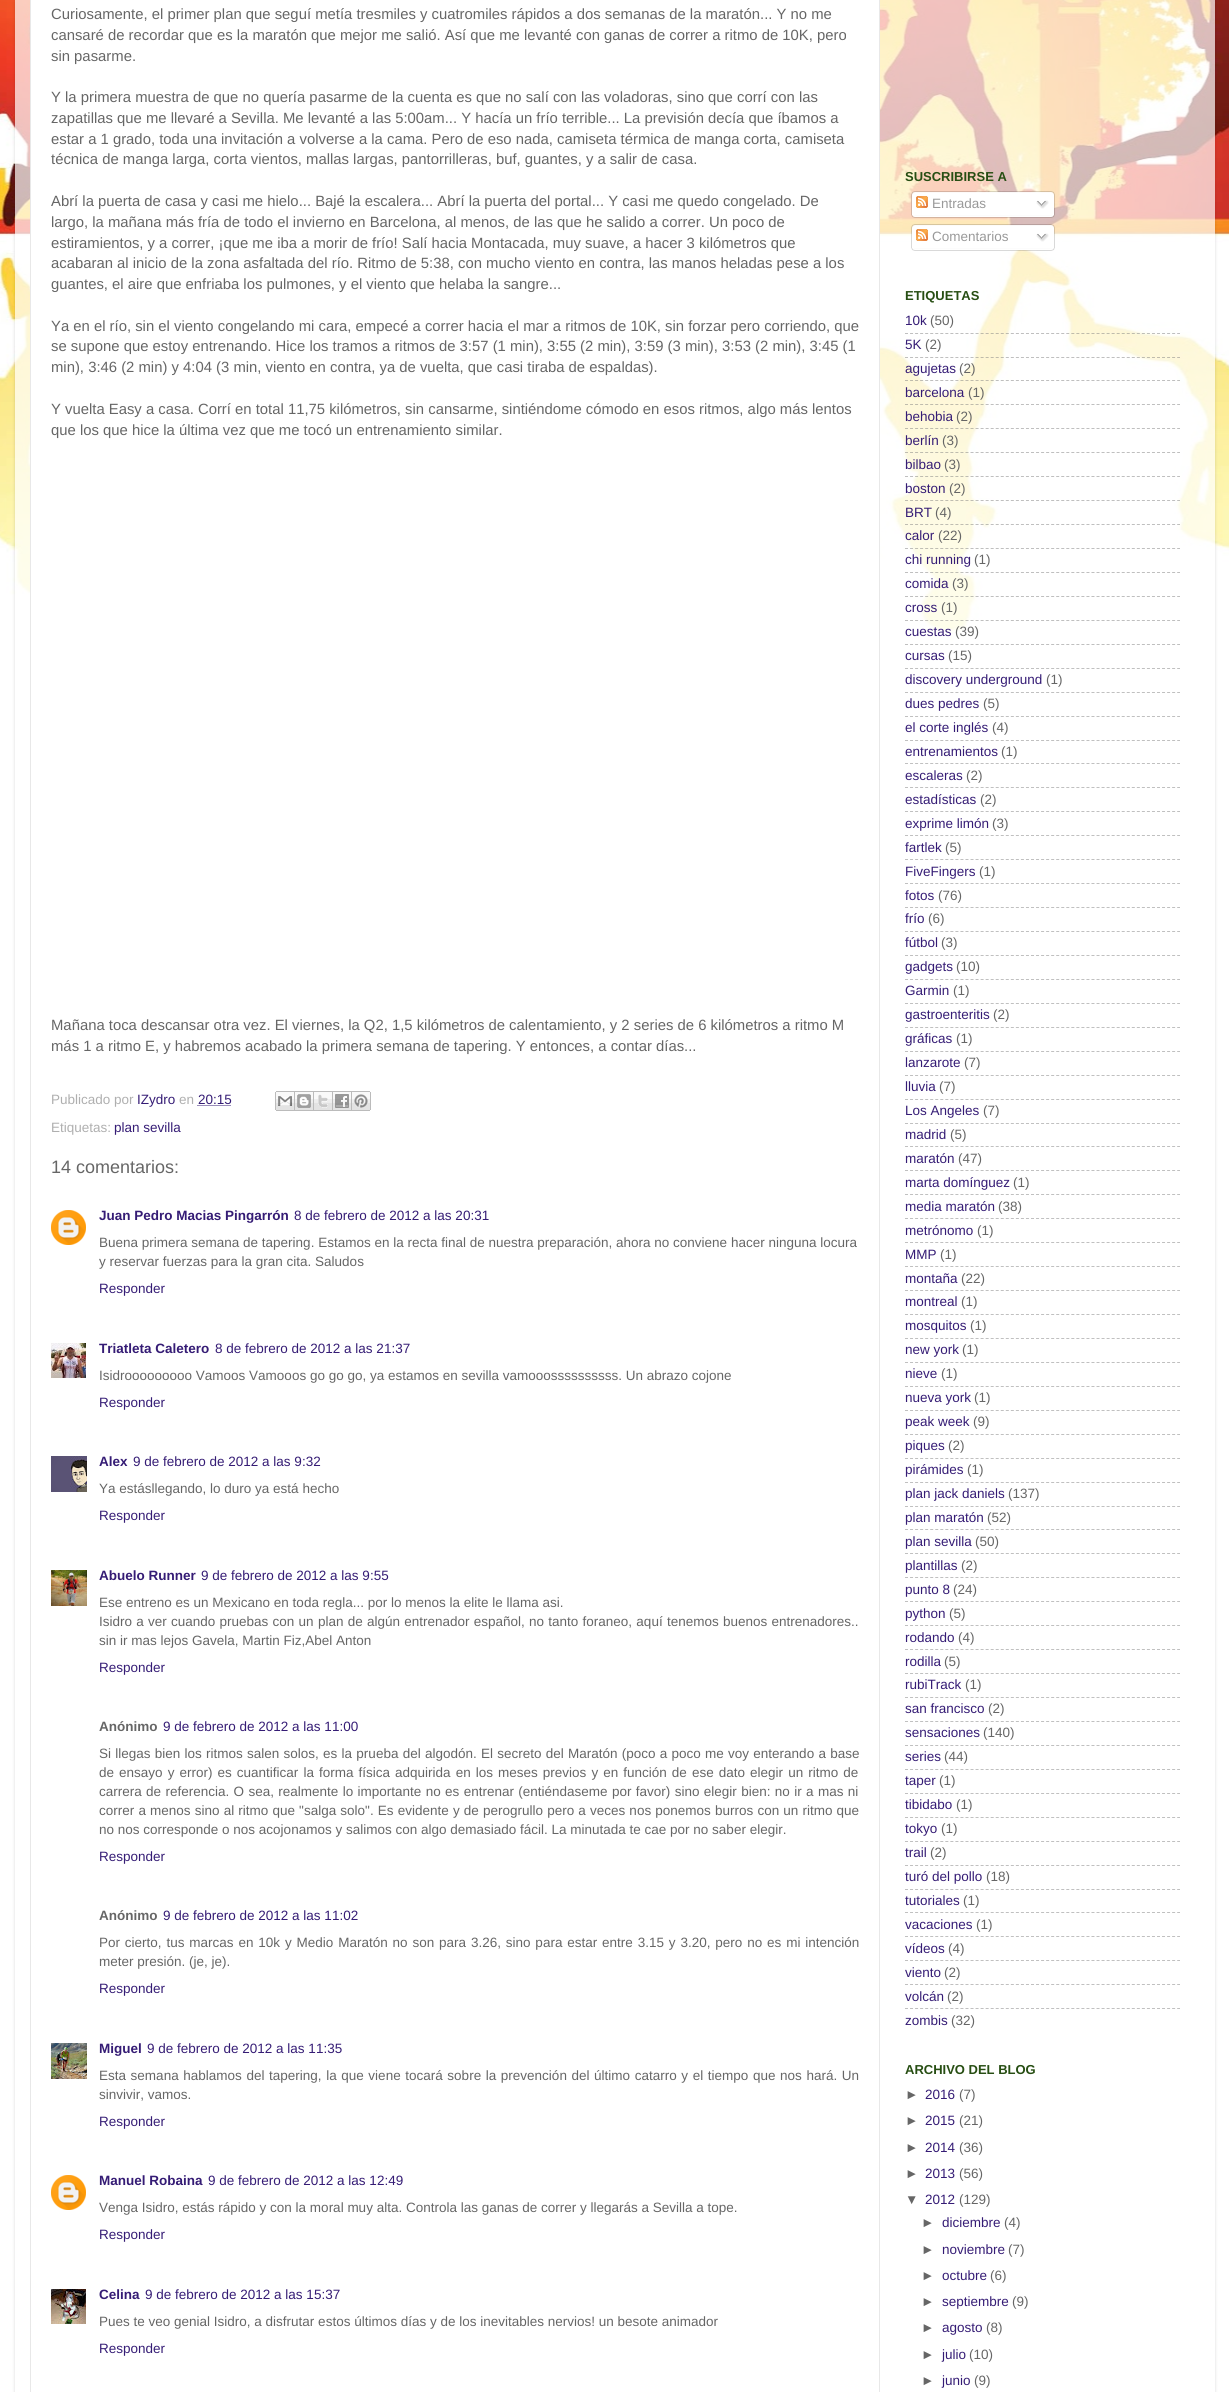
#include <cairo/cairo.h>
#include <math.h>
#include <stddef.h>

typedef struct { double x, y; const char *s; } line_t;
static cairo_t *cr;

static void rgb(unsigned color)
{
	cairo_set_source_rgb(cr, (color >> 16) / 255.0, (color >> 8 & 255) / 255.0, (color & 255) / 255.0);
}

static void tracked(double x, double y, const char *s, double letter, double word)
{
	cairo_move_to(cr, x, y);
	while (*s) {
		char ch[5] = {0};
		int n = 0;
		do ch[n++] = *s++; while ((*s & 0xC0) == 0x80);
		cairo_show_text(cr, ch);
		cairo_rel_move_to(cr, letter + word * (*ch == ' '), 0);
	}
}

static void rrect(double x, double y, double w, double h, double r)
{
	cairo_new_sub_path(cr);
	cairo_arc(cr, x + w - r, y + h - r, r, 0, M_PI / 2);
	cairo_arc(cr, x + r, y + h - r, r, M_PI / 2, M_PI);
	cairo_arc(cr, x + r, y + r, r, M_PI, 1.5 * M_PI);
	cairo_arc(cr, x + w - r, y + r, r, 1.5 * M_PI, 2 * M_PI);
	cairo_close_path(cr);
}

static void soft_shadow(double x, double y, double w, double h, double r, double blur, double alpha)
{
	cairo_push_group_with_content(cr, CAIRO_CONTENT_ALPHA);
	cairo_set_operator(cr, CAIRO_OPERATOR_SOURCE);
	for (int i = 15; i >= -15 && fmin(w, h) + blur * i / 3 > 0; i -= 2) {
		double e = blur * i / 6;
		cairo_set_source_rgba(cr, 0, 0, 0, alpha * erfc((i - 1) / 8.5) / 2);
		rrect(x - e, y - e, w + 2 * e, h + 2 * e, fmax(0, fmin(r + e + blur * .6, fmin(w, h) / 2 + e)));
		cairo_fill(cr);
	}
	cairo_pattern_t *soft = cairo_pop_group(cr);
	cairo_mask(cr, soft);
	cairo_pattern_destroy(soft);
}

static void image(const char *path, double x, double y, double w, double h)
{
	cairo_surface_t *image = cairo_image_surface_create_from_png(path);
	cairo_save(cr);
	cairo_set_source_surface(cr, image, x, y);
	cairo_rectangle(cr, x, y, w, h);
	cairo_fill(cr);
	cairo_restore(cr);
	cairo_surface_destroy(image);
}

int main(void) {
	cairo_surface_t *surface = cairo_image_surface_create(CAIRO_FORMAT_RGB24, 1229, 2392);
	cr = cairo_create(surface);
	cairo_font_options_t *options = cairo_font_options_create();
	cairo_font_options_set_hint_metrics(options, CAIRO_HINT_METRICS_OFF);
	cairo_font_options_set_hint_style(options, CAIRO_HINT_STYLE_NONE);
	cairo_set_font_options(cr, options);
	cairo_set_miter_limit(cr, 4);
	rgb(0xffffff);
	cairo_paint(cr);
	image("img/1.png", 0, 0, 1229, 663);
	cairo_save(cr);
	cairo_set_fill_rule(cr, CAIRO_FILL_RULE_EVEN_ODD);
	cairo_new_path(cr);
	cairo_move_to(cr, 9, 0);
	cairo_line_to(cr, 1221, 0);
	cairo_line_to(cr, 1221, 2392);
	cairo_line_to(cr, 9, 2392);
	cairo_close_path(cr);
	cairo_move_to(cr, 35, -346);
	cairo_line_to(cr, 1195, -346);
	cairo_curve_to(cr, 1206, -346, 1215, -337, 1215, -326);
	cairo_line_to(cr, 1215, 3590);
	cairo_line_to(cr, 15, 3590);
	cairo_line_to(cr, 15, -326);
	cairo_curve_to(cr, 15, -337, 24, -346, 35, -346);
	cairo_close_path(cr);
	cairo_clip(cr);
	rgb(0x000000);
	soft_shadow(15, -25, 1200, 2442, 20, 1.5, 0.15);
	cairo_restore(cr);
	rgb(0xffffff);
	cairo_rectangle(cr, 31, 0, 848, 663);
	cairo_fill(cr);
	cairo_rectangle(cr, 30.5, -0.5, 849, 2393);
	rgb(0xe8e8e8);
	cairo_set_line_width(cr, 1);
	cairo_stroke(cr);
	cairo_new_path(cr);
	cairo_move_to(cr, 197.5, 1105.5);
	cairo_line_to(cr, 231.5, 1105.5);
	rgb(0x351c75);
	cairo_set_dash(cr, (double[]){1, 1}, 2, 0);
	cairo_stroke(cr);
	image("img/2.png", 275, 1091, 20, 20);
	image("img/3.png", 295, 1091, 19, 20);
	image("img/4.png", 314, 1091, 19, 20);
	image("img/5.png", 333, 1091, 19, 20);
	image("img/6.png", 352, 1091, 19, 20);
	image("img/7.png", 51, 1210, 35, 35);
	image("img/8.png", 51, 1343, 35, 35);
	image("img/9.png", 51, 1456, 36, 36);
	image("img/10.png", 51, 1570, 36, 36);
	image("img/11.png", 51, 2043, 36, 36);
	image("img/7.png", 51, 2175, 35, 35);
	image("img/12.png", 51, 2289, 35, 35);
	image("img/13.png", 911, 191, 144, 24);
	image("img/14.png", 916, 196, 12, 12);
	image("img/15.png", 1036, 200, 13, 9);
	image("img/16.png", 911, 215, 144, 3);
	image("img/17.png", 911, 224, 144, 24);
	image("img/14.png", 916, 229, 12, 12);
	image("img/15.png", 1036, 233, 13, 9);
	image("img/18.png", 911, 248, 144, 3);
	cairo_new_path(cr);
	cairo_move_to(cr, 905, 333.5);
	cairo_line_to(cr, 1180, 333.5);
	cairo_set_source_rgba(cr, 0.502, 0.502, 0.502, 0.5);
	cairo_set_dash(cr, (double[]){3, 2.04}, 2, 0);
	cairo_stroke(cr);
	cairo_new_path(cr);
	cairo_move_to(cr, 905, 357.5);
	cairo_line_to(cr, 1180, 357.5);
	cairo_stroke(cr);
	cairo_new_path(cr);
	cairo_move_to(cr, 905, 380.5);
	cairo_line_to(cr, 1180, 380.5);
	cairo_stroke(cr);
	cairo_new_path(cr);
	cairo_move_to(cr, 905, 404.5);
	cairo_line_to(cr, 1180, 404.5);
	cairo_stroke(cr);
	cairo_new_path(cr);
	cairo_move_to(cr, 905, 428.5);
	cairo_line_to(cr, 1180, 428.5);
	cairo_stroke(cr);
	cairo_new_path(cr);
	cairo_move_to(cr, 905, 452.5);
	cairo_line_to(cr, 1180, 452.5);
	cairo_stroke(cr);
	cairo_new_path(cr);
	cairo_move_to(cr, 905, 476.5);
	cairo_line_to(cr, 1180, 476.5);
	cairo_stroke(cr);
	cairo_new_path(cr);
	cairo_move_to(cr, 905, 500.5);
	cairo_line_to(cr, 1180, 500.5);
	cairo_stroke(cr);
	cairo_new_path(cr);
	cairo_move_to(cr, 905, 524.5);
	cairo_line_to(cr, 1180, 524.5);
	cairo_stroke(cr);
	cairo_new_path(cr);
	cairo_move_to(cr, 905, 548.5);
	cairo_line_to(cr, 1180, 548.5);
	cairo_stroke(cr);
	cairo_new_path(cr);
	cairo_move_to(cr, 905, 572.5);
	cairo_line_to(cr, 1180, 572.5);
	cairo_stroke(cr);
	cairo_new_path(cr);
	cairo_move_to(cr, 905, 596.5);
	cairo_line_to(cr, 1180, 596.5);
	cairo_stroke(cr);
	cairo_new_path(cr);
	cairo_move_to(cr, 905, 620.5);
	cairo_line_to(cr, 1180, 620.5);
	cairo_stroke(cr);
	cairo_new_path(cr);
	cairo_move_to(cr, 905, 644.5);
	cairo_line_to(cr, 1180, 644.5);
	rgb(0xbfbfbf);
	cairo_stroke(cr);
	cairo_new_path(cr);
	cairo_move_to(cr, 905, 668.5);
	cairo_line_to(cr, 1180, 668.5);
	rgb(0xc0c0c0);
	cairo_stroke(cr);
	cairo_new_path(cr);
	cairo_move_to(cr, 905, 692.5);
	cairo_line_to(cr, 1180, 692.5);
	cairo_stroke(cr);
	cairo_new_path(cr);
	cairo_move_to(cr, 905, 716.5);
	cairo_line_to(cr, 1180, 716.5);
	cairo_stroke(cr);
	cairo_new_path(cr);
	cairo_move_to(cr, 905, 740.5);
	cairo_line_to(cr, 1180, 740.5);
	cairo_stroke(cr);
	cairo_new_path(cr);
	cairo_move_to(cr, 905, 763.5);
	cairo_line_to(cr, 1180, 763.5);
	cairo_stroke(cr);
	cairo_new_path(cr);
	cairo_move_to(cr, 905, 787.5);
	cairo_line_to(cr, 1180, 787.5);
	cairo_stroke(cr);
	cairo_new_path(cr);
	cairo_move_to(cr, 905, 811.5);
	cairo_line_to(cr, 1180, 811.5);
	cairo_stroke(cr);
	cairo_new_path(cr);
	cairo_move_to(cr, 905, 835.5);
	cairo_line_to(cr, 1180, 835.5);
	cairo_stroke(cr);
	cairo_new_path(cr);
	cairo_move_to(cr, 905, 859.5);
	cairo_line_to(cr, 1180, 859.5);
	cairo_stroke(cr);
	cairo_new_path(cr);
	cairo_move_to(cr, 905, 883.5);
	cairo_line_to(cr, 1180, 883.5);
	cairo_stroke(cr);
	cairo_new_path(cr);
	cairo_move_to(cr, 905, 907.5);
	cairo_line_to(cr, 1180, 907.5);
	cairo_stroke(cr);
	cairo_new_path(cr);
	cairo_move_to(cr, 905, 931.5);
	cairo_line_to(cr, 1180, 931.5);
	cairo_stroke(cr);
	cairo_new_path(cr);
	cairo_move_to(cr, 905, 955.5);
	cairo_line_to(cr, 1180, 955.5);
	cairo_stroke(cr);
	cairo_new_path(cr);
	cairo_move_to(cr, 905, 979.5);
	cairo_line_to(cr, 1180, 979.5);
	cairo_stroke(cr);
	cairo_new_path(cr);
	cairo_move_to(cr, 905, 1003.5);
	cairo_line_to(cr, 1180, 1003.5);
	cairo_stroke(cr);
	cairo_new_path(cr);
	cairo_move_to(cr, 905, 1027.5);
	cairo_line_to(cr, 1180, 1027.5);
	cairo_stroke(cr);
	cairo_new_path(cr);
	cairo_move_to(cr, 905, 1051.5);
	cairo_line_to(cr, 1180, 1051.5);
	cairo_stroke(cr);
	cairo_new_path(cr);
	cairo_move_to(cr, 905, 1075.5);
	cairo_line_to(cr, 1180, 1075.5);
	cairo_stroke(cr);
	cairo_new_path(cr);
	cairo_move_to(cr, 905, 1099.5);
	cairo_line_to(cr, 1180, 1099.5);
	cairo_stroke(cr);
	cairo_new_path(cr);
	cairo_move_to(cr, 905, 1123.5);
	cairo_line_to(cr, 1180, 1123.5);
	cairo_stroke(cr);
	cairo_new_path(cr);
	cairo_move_to(cr, 905, 1146.5);
	cairo_line_to(cr, 1180, 1146.5);
	cairo_stroke(cr);
	cairo_new_path(cr);
	cairo_move_to(cr, 905, 1170.5);
	cairo_line_to(cr, 1180, 1170.5);
	cairo_stroke(cr);
	cairo_new_path(cr);
	cairo_move_to(cr, 905, 1194.5);
	cairo_line_to(cr, 1180, 1194.5);
	cairo_stroke(cr);
	cairo_new_path(cr);
	cairo_move_to(cr, 905, 1218.5);
	cairo_line_to(cr, 1180, 1218.5);
	cairo_stroke(cr);
	cairo_new_path(cr);
	cairo_move_to(cr, 905, 1242.5);
	cairo_line_to(cr, 1180, 1242.5);
	cairo_stroke(cr);
	cairo_new_path(cr);
	cairo_move_to(cr, 905, 1266.5);
	cairo_line_to(cr, 1180, 1266.5);
	cairo_stroke(cr);
	cairo_new_path(cr);
	cairo_move_to(cr, 905, 1290.5);
	cairo_line_to(cr, 1180, 1290.5);
	cairo_stroke(cr);
	cairo_new_path(cr);
	cairo_move_to(cr, 905, 1314.5);
	cairo_line_to(cr, 1180, 1314.5);
	cairo_stroke(cr);
	cairo_new_path(cr);
	cairo_move_to(cr, 905, 1338.5);
	cairo_line_to(cr, 1180, 1338.5);
	cairo_stroke(cr);
	cairo_new_path(cr);
	cairo_move_to(cr, 905, 1362.5);
	cairo_line_to(cr, 1180, 1362.5);
	cairo_stroke(cr);
	cairo_new_path(cr);
	cairo_move_to(cr, 905, 1386.5);
	cairo_line_to(cr, 1180, 1386.5);
	cairo_stroke(cr);
	cairo_new_path(cr);
	cairo_move_to(cr, 905, 1410.5);
	cairo_line_to(cr, 1180, 1410.5);
	cairo_stroke(cr);
	cairo_new_path(cr);
	cairo_move_to(cr, 905, 1434.5);
	cairo_line_to(cr, 1180, 1434.5);
	cairo_stroke(cr);
	cairo_new_path(cr);
	cairo_move_to(cr, 905, 1458.5);
	cairo_line_to(cr, 1180, 1458.5);
	cairo_stroke(cr);
	cairo_new_path(cr);
	cairo_move_to(cr, 905, 1482.5);
	cairo_line_to(cr, 1180, 1482.5);
	cairo_stroke(cr);
	cairo_new_path(cr);
	cairo_move_to(cr, 905, 1506.5);
	cairo_line_to(cr, 1180, 1506.5);
	cairo_stroke(cr);
	cairo_new_path(cr);
	cairo_move_to(cr, 905, 1529.5);
	cairo_line_to(cr, 1180, 1529.5);
	cairo_stroke(cr);
	cairo_new_path(cr);
	cairo_move_to(cr, 905, 1553.5);
	cairo_line_to(cr, 1180, 1553.5);
	cairo_stroke(cr);
	cairo_new_path(cr);
	cairo_move_to(cr, 905, 1577.5);
	cairo_line_to(cr, 1180, 1577.5);
	cairo_stroke(cr);
	cairo_new_path(cr);
	cairo_move_to(cr, 905, 1601.5);
	cairo_line_to(cr, 1180, 1601.5);
	cairo_stroke(cr);
	cairo_new_path(cr);
	cairo_move_to(cr, 905, 1625.5);
	cairo_line_to(cr, 1180, 1625.5);
	cairo_stroke(cr);
	cairo_new_path(cr);
	cairo_move_to(cr, 905, 1649.5);
	cairo_line_to(cr, 1180, 1649.5);
	cairo_stroke(cr);
	cairo_new_path(cr);
	cairo_move_to(cr, 905, 1673.5);
	cairo_line_to(cr, 1180, 1673.5);
	cairo_stroke(cr);
	cairo_new_path(cr);
	cairo_move_to(cr, 905, 1697.5);
	cairo_line_to(cr, 1180, 1697.5);
	cairo_stroke(cr);
	cairo_new_path(cr);
	cairo_move_to(cr, 905, 1721.5);
	cairo_line_to(cr, 1180, 1721.5);
	cairo_stroke(cr);
	cairo_new_path(cr);
	cairo_move_to(cr, 905, 1745.5);
	cairo_line_to(cr, 1180, 1745.5);
	cairo_stroke(cr);
	cairo_new_path(cr);
	cairo_move_to(cr, 905, 1769.5);
	cairo_line_to(cr, 1180, 1769.5);
	cairo_stroke(cr);
	cairo_new_path(cr);
	cairo_move_to(cr, 905, 1793.5);
	cairo_line_to(cr, 1180, 1793.5);
	cairo_stroke(cr);
	cairo_new_path(cr);
	cairo_move_to(cr, 905, 1817.5);
	cairo_line_to(cr, 1180, 1817.5);
	cairo_stroke(cr);
	cairo_new_path(cr);
	cairo_move_to(cr, 905, 1841.5);
	cairo_line_to(cr, 1180, 1841.5);
	cairo_stroke(cr);
	cairo_new_path(cr);
	cairo_move_to(cr, 905, 1865.5);
	cairo_line_to(cr, 1180, 1865.5);
	cairo_stroke(cr);
	cairo_new_path(cr);
	cairo_move_to(cr, 905, 1889.5);
	cairo_line_to(cr, 1180, 1889.5);
	cairo_stroke(cr);
	cairo_new_path(cr);
	cairo_move_to(cr, 905, 1912.5);
	cairo_line_to(cr, 1180, 1912.5);
	cairo_stroke(cr);
	cairo_new_path(cr);
	cairo_move_to(cr, 905, 1936.5);
	cairo_line_to(cr, 1180, 1936.5);
	cairo_stroke(cr);
	cairo_new_path(cr);
	cairo_move_to(cr, 905, 1960.5);
	cairo_line_to(cr, 1180, 1960.5);
	cairo_stroke(cr);
	cairo_new_path(cr);
	cairo_move_to(cr, 905, 1984.5);
	cairo_line_to(cr, 1180, 1984.5);
	cairo_stroke(cr);
	cairo_new_path(cr);
	cairo_move_to(cr, 905, 2008.5);
	cairo_line_to(cr, 1180, 2008.5);
	cairo_stroke(cr);
	cairo_select_font_face(cr, "Liberation Sans", CAIRO_FONT_SLANT_NORMAL, CAIRO_FONT_WEIGHT_NORMAL);
	cairo_set_font_size(cr, 14.85);
	rgb(0x666666);
	{
		static const line_t items[] = {
			{51, 19, "Curiosamente, el primer plan que seguí metía tresmiles y cuatromiles rápidos a dos semanas de la maratón... Y no me"},
			{51, 40, "cansaré de recordar que es la maratón que mejor me salió. Así que me levanté con ganas de correr a ritmo de 10K, pero"},
			{51, 61, "sin pasarme."},
			{51, 102, "Y la primera muestra de que no quería pasarme de la cuenta es que no salí con las voladoras, sino que corrí con las"},
			{51, 123, "zapatillas que me llevaré a Sevilla. Me levanté a las 5:00am... Y hacía un frío terrible... La previsión decía que íbamos a"},
			{51, 144, "estar a 1 grado, toda una invitación a volverse a la cama. Pero de eso nada, camiseta térmica de manga corta, camiseta"},
			{51, 164, "técnica de manga larga, corta vientos, mallas largas, pantorrilleras, buf, guantes, y a salir de casa."},
			{51, 206, "Abrí la puerta de casa y casi me hielo... Bajé la escalera... Abrí la puerta del portal... Y casi me quedo congelado. De"},
			{51, 227, "largo, la mañana más fría de todo el invierno en Barcelona, al menos, de las que he salido a correr. Un poco de"},
			{51, 248, "estiramientos, y a correr, ¡que me iba a morir de frío! Salí hacia Montacada, muy suave, a hacer 3 kilómetros que"},
			{51, 268, "acabaran al inicio de la zona asfaltada del río. Ritmo de 5:38, con mucho viento en contra, las manos heladas pese a los"},
			{51, 289, "guantes, el aire que enfriaba los pulmones, y el viento que helaba la sangre..."},
			{51, 331, "Ya en el río, sin el viento congelando mi cara, empecé a correr hacia el mar a ritmos de 10K, sin forzar pero corriendo, que"},
			{51, 351, "se supone que estoy entrenando. Hice los tramos a ritmos de 3:57 (1 min), 3:55 (2 min), 3:59 (3 min), 3:53 (2 min), 3:45 (1"},
			{51, 372, "min), 3:46 (2 min) y 4:04 (3 min, viento en contra, ya de vuelta, que casi tiraba de espaldas)."},
			{51, 414, "Y vuelta Easy a casa. Corrí en total 11,75 kilómetros, sin cansarme, sintiéndome cómodo en esos ritmos, algo más lentos"},
			{51, 435, "que los que hice la última vez que me tocó un entrenamiento similar."},
			{51, 1030, "Mañana toca descansar otra vez. El viernes, la Q2, 1,5 kilómetros de calentamiento, y 2 series de 6 kilómetros a ritmo M"},
			{51, 1051, "más 1 a ritmo E, y habremos acabado la primera semana de tapering. Y entonces, a contar días..."},
		};
		for (size_t i = 0; i < sizeof items / sizeof *items; i++) {
			cairo_move_to(cr, items[i].x, items[i].y);
			cairo_show_text(cr, items[i].s);
		}
	}
	cairo_set_font_size(cr, 13.5);
	rgb(0xafafaf);
	cairo_move_to(cr, 51, 1104);
	cairo_show_text(cr, "Publicado por");
	rgb(0x351c75);
	cairo_move_to(cr, 137, 1104);
	cairo_show_text(cr, "IZydro");
	rgb(0xafafaf);
	cairo_move_to(cr, 179, 1104);
	cairo_show_text(cr, "en");
	rgb(0x351c75);
	cairo_move_to(cr, 198, 1104);
	cairo_show_text(cr, "20:15");
	rgb(0xafafaf);
	cairo_move_to(cr, 51, 1132);
	cairo_show_text(cr, "Etiquetas:");
	rgb(0x351c75);
	cairo_move_to(cr, 114, 1132);
	cairo_show_text(cr, "plan sevilla");
	cairo_set_font_size(cr, 18);
	rgb(0x666666);
	cairo_move_to(cr, 51, 1173);
	cairo_show_text(cr, "14 comentarios:");
	cairo_select_font_face(cr, "Liberation Sans", CAIRO_FONT_SLANT_NORMAL, CAIRO_FONT_WEIGHT_BOLD);
	cairo_set_font_size(cr, 13.5);
	rgb(0x351c75);
	cairo_move_to(cr, 99, 1220);
	cairo_show_text(cr, "Juan Pedro Macias Pingarrón");
	cairo_select_font_face(cr, "Liberation Sans", CAIRO_FONT_SLANT_NORMAL, CAIRO_FONT_WEIGHT_NORMAL);
	cairo_move_to(cr, 294, 1220);
	cairo_show_text(cr, "8 de febrero de 2012 a las 20:31");
	rgb(0x666666);
	cairo_move_to(cr, 99, 1247);
	cairo_show_text(cr, "Buena primera semana de tapering. Estamos en la recta final de nuestra preparación, ahora no conviene hacer ninguna locura");
	cairo_move_to(cr, 99, 1266);
	cairo_show_text(cr, "y reservar fuerzas para la gran cita. Saludos");
	rgb(0x351c75);
	cairo_move_to(cr, 99, 1293);
	cairo_show_text(cr, "Responder");
	cairo_select_font_face(cr, "Liberation Sans", CAIRO_FONT_SLANT_NORMAL, CAIRO_FONT_WEIGHT_BOLD);
	cairo_move_to(cr, 99, 1353);
	cairo_show_text(cr, "Triatleta Caletero");
	cairo_select_font_face(cr, "Liberation Sans", CAIRO_FONT_SLANT_NORMAL, CAIRO_FONT_WEIGHT_NORMAL);
	cairo_move_to(cr, 215, 1353);
	cairo_show_text(cr, "8 de febrero de 2012 a las 21:37");
	rgb(0x666666);
	cairo_move_to(cr, 99, 1380);
	cairo_show_text(cr, "Isidrooooooooo Vamoos Vamooos go go go, ya estamos en sevilla vamooossssssssss. Un abrazo cojone");
	rgb(0x351c75);
	cairo_move_to(cr, 99, 1407);
	cairo_show_text(cr, "Responder");
	cairo_select_font_face(cr, "Liberation Sans", CAIRO_FONT_SLANT_NORMAL, CAIRO_FONT_WEIGHT_BOLD);
	cairo_move_to(cr, 99, 1466);
	cairo_show_text(cr, "Alex");
	cairo_select_font_face(cr, "Liberation Sans", CAIRO_FONT_SLANT_NORMAL, CAIRO_FONT_WEIGHT_NORMAL);
	cairo_move_to(cr, 133, 1466);
	cairo_show_text(cr, "9 de febrero de 2012 a las 9:32");
	rgb(0x666666);
	cairo_move_to(cr, 99, 1493);
	cairo_show_text(cr, "Ya estásllegando, lo duro ya está hecho");
	rgb(0x351c75);
	cairo_move_to(cr, 99, 1520);
	cairo_show_text(cr, "Responder");
	cairo_select_font_face(cr, "Liberation Sans", CAIRO_FONT_SLANT_NORMAL, CAIRO_FONT_WEIGHT_BOLD);
	cairo_move_to(cr, 99, 1580);
	cairo_show_text(cr, "Abuelo Runner");
	cairo_select_font_face(cr, "Liberation Sans", CAIRO_FONT_SLANT_NORMAL, CAIRO_FONT_WEIGHT_NORMAL);
	cairo_move_to(cr, 201, 1580);
	cairo_show_text(cr, "9 de febrero de 2012 a las 9:55");
	rgb(0x666666);
	cairo_move_to(cr, 99, 1607);
	cairo_show_text(cr, "Ese entreno es un Mexicano en toda regla... por lo menos la elite le llama asi.");
	tracked(99, 1626, "Isidro a ver cuando pruebas con un plan de algún entrenador español, no tanto foraneo, aquí tenemos buenos entrenadores..", 0, 0.5);
	cairo_move_to(cr, 99, 1645);
	cairo_show_text(cr, "sin ir mas lejos Gavela, Martin Fiz,Abel Anton");
	rgb(0x351c75);
	cairo_move_to(cr, 99, 1672);
	cairo_show_text(cr, "Responder");
	cairo_select_font_face(cr, "Liberation Sans", CAIRO_FONT_SLANT_NORMAL, CAIRO_FONT_WEIGHT_BOLD);
	rgb(0x666666);
	cairo_move_to(cr, 99, 1731);
	cairo_show_text(cr, "Anónimo");
	cairo_select_font_face(cr, "Liberation Sans", CAIRO_FONT_SLANT_NORMAL, CAIRO_FONT_WEIGHT_NORMAL);
	rgb(0x351c75);
	cairo_move_to(cr, 163, 1731);
	cairo_show_text(cr, "9 de febrero de 2012 a las 11:00");
	rgb(0x666666);
	tracked(99, 1758, "Si llegas bien los ritmos salen solos, es la prueba del algodón. El secreto del Maratón (poco a poco me voy enterando a base", 0, 0.5);
	tracked(99, 1777, "de ensayo y error) es cuantificar la forma física adquirida en los meses previos y en función de ese dato elegir un ritmo de", 0, 1.3);
	tracked(99, 1796, "carrera de referencia. O sea, realmente lo importante no es entrenar (entiéndaseme por favor) sino elegir bien: no ir a mas ni", 0, 0.6);
	tracked(99, 1815, "correr a menos sino al ritmo que \"salga solo\". Es evidente y de perogrullo pero a veces nos ponemos burros con un ritmo que", 0, 0.4);
	cairo_move_to(cr, 99, 1834);
	cairo_show_text(cr, "no nos corresponde o nos acojonamos y salimos con algo demasiado fácil. La minutada te cae por no saber elegir.");
	rgb(0x351c75);
	cairo_move_to(cr, 99, 1861);
	cairo_show_text(cr, "Responder");
	cairo_select_font_face(cr, "Liberation Sans", CAIRO_FONT_SLANT_NORMAL, CAIRO_FONT_WEIGHT_BOLD);
	rgb(0x666666);
	cairo_move_to(cr, 99, 1920);
	cairo_show_text(cr, "Anónimo");
	cairo_select_font_face(cr, "Liberation Sans", CAIRO_FONT_SLANT_NORMAL, CAIRO_FONT_WEIGHT_NORMAL);
	rgb(0x351c75);
	cairo_move_to(cr, 163, 1920);
	cairo_show_text(cr, "9 de febrero de 2012 a las 11:02");
	rgb(0x666666);
	tracked(99, 1947, "Por cierto, tus marcas en 10k y Medio Maratón no son para 3.26, sino para estar entre 3.15 y 3.20, pero no es mi intención", 0, 1.1);
	cairo_move_to(cr, 99, 1966);
	cairo_show_text(cr, "meter presión. (je, je).");
	rgb(0x351c75);
	cairo_move_to(cr, 99, 1993);
	cairo_show_text(cr, "Responder");
	cairo_select_font_face(cr, "Liberation Sans", CAIRO_FONT_SLANT_NORMAL, CAIRO_FONT_WEIGHT_BOLD);
	cairo_move_to(cr, 99, 2053);
	cairo_show_text(cr, "Miguel");
	cairo_select_font_face(cr, "Liberation Sans", CAIRO_FONT_SLANT_NORMAL, CAIRO_FONT_WEIGHT_NORMAL);
	cairo_move_to(cr, 147, 2053);
	cairo_show_text(cr, "9 de febrero de 2012 a las 11:35");
	rgb(0x666666);
	tracked(99, 2080, "Esta semana hablamos del tapering, la que viene tocará sobre la prevención del último catarro y el tiempo que nos hará. Un", 0, 0.85);
	cairo_move_to(cr, 99, 2099);
	cairo_show_text(cr, "sinvivir, vamos.");
	rgb(0x351c75);
	cairo_move_to(cr, 99, 2126);
	cairo_show_text(cr, "Responder");
	cairo_select_font_face(cr, "Liberation Sans", CAIRO_FONT_SLANT_NORMAL, CAIRO_FONT_WEIGHT_BOLD);
	cairo_move_to(cr, 99, 2185);
	cairo_show_text(cr, "Manuel Robaina");
	cairo_select_font_face(cr, "Liberation Sans", CAIRO_FONT_SLANT_NORMAL, CAIRO_FONT_WEIGHT_NORMAL);
	cairo_move_to(cr, 208, 2185);
	cairo_show_text(cr, "9 de febrero de 2012 a las 12:49");
	rgb(0x666666);
	cairo_move_to(cr, 99, 2212);
	cairo_show_text(cr, "Venga Isidro, estás rápido y con la moral muy alta. Controla las ganas de correr y llegarás a Sevilla a tope.");
	rgb(0x351c75);
	cairo_move_to(cr, 99, 2239);
	cairo_show_text(cr, "Responder");
	cairo_select_font_face(cr, "Liberation Sans", CAIRO_FONT_SLANT_NORMAL, CAIRO_FONT_WEIGHT_BOLD);
	cairo_move_to(cr, 99, 2299);
	cairo_show_text(cr, "Celina");
	cairo_select_font_face(cr, "Liberation Sans", CAIRO_FONT_SLANT_NORMAL, CAIRO_FONT_WEIGHT_NORMAL);
	cairo_move_to(cr, 145, 2299);
	cairo_show_text(cr, "9 de febrero de 2012 a las 15:37");
	rgb(0x666666);
	cairo_move_to(cr, 99, 2326);
	cairo_show_text(cr, "Pues te veo genial Isidro, a disfrutar estos últimos días y de los inevitables nervios! un besote animador");
	rgb(0x351c75);
	cairo_move_to(cr, 99, 2353);
	cairo_show_text(cr, "Responder");
	cairo_select_font_face(cr, "Liberation Sans", CAIRO_FONT_SLANT_NORMAL, CAIRO_FONT_WEIGHT_BOLD);
	cairo_set_font_size(cr, 13);
	rgb(0x274e13);
	cairo_move_to(cr, 905, 181);
	cairo_show_text(cr, "SUSCRIBIRSE A");
	cairo_select_font_face(cr, "Liberation Sans", CAIRO_FONT_SLANT_NORMAL, CAIRO_FONT_WEIGHT_NORMAL);
	cairo_set_font_size(cr, 13.5);
	rgb(0x999999);
	cairo_move_to(cr, 932, 208);
	cairo_show_text(cr, "Entradas");
	cairo_move_to(cr, 932, 241);
	cairo_show_text(cr, "Comentarios");
	cairo_select_font_face(cr, "Liberation Sans", CAIRO_FONT_SLANT_NORMAL, CAIRO_FONT_WEIGHT_BOLD);
	cairo_set_font_size(cr, 13);
	rgb(0x274e13);
	cairo_move_to(cr, 905, 300);
	cairo_show_text(cr, "ETIQUETAS");
	cairo_select_font_face(cr, "Liberation Sans", CAIRO_FONT_SLANT_NORMAL, CAIRO_FONT_WEIGHT_NORMAL);
	cairo_set_font_size(cr, 13.5);
	rgb(0x351c75);
	cairo_move_to(cr, 905, 325);
	cairo_show_text(cr, "10k");
	rgb(0x666666);
	cairo_move_to(cr, 930, 325);
	cairo_show_text(cr, "(50)");
	rgb(0x351c75);
	cairo_move_to(cr, 905, 349);
	cairo_show_text(cr, "5K");
	rgb(0x666666);
	cairo_move_to(cr, 925, 349);
	cairo_show_text(cr, "(2)");
	rgb(0x351c75);
	cairo_move_to(cr, 905, 373);
	cairo_show_text(cr, "agujetas");
	rgb(0x666666);
	cairo_move_to(cr, 959, 373);
	cairo_show_text(cr, "(2)");
	rgb(0x351c75);
	cairo_move_to(cr, 905, 397);
	cairo_show_text(cr, "barcelona");
	rgb(0x666666);
	cairo_move_to(cr, 968, 397);
	cairo_show_text(cr, "(1)");
	rgb(0x351c75);
	cairo_move_to(cr, 905, 421);
	cairo_show_text(cr, "behobia");
	rgb(0x666666);
	cairo_move_to(cr, 956, 421);
	cairo_show_text(cr, "(2)");
	rgb(0x351c75);
	cairo_move_to(cr, 905, 445);
	cairo_show_text(cr, "berlín");
	rgb(0x666666);
	cairo_move_to(cr, 942, 445);
	cairo_show_text(cr, "(3)");
	rgb(0x351c75);
	cairo_move_to(cr, 905, 469);
	cairo_show_text(cr, "bilbao");
	rgb(0x666666);
	cairo_move_to(cr, 944, 469);
	cairo_show_text(cr, "(3)");
	rgb(0x351c75);
	cairo_move_to(cr, 905, 493);
	cairo_show_text(cr, "boston");
	rgb(0x666666);
	cairo_move_to(cr, 949, 493);
	cairo_show_text(cr, "(2)");
	rgb(0x351c75);
	cairo_move_to(cr, 905, 517);
	cairo_show_text(cr, "BRT");
	rgb(0x666666);
	cairo_move_to(cr, 935, 517);
	cairo_show_text(cr, "(4)");
	rgb(0x351c75);
	cairo_move_to(cr, 905, 540);
	cairo_show_text(cr, "calor");
	rgb(0x666666);
	cairo_move_to(cr, 938, 540);
	cairo_show_text(cr, "(22)");
	rgb(0x351c75);
	cairo_move_to(cr, 905, 564);
	cairo_show_text(cr, "chi running");
	rgb(0x666666);
	cairo_move_to(cr, 974, 564);
	cairo_show_text(cr, "(1)");
	rgb(0x351c75);
	cairo_move_to(cr, 905, 588);
	cairo_show_text(cr, "comida");
	rgb(0x666666);
	cairo_move_to(cr, 952, 588);
	cairo_show_text(cr, "(3)");
	rgb(0x351c75);
	cairo_move_to(cr, 905, 612);
	cairo_show_text(cr, "cross");
	rgb(0x666666);
	cairo_move_to(cr, 941, 612);
	cairo_show_text(cr, "(1)");
	rgb(0x351c75);
	cairo_move_to(cr, 905, 636);
	cairo_show_text(cr, "cuestas");
	rgb(0x666666);
	cairo_move_to(cr, 955, 636);
	cairo_show_text(cr, "(39)");
	rgb(0x351c75);
	cairo_move_to(cr, 905, 660);
	cairo_show_text(cr, "cursas");
	rgb(0x666666);
	cairo_move_to(cr, 948, 660);
	cairo_show_text(cr, "(15)");
	rgb(0x351c75);
	cairo_move_to(cr, 905, 684);
	cairo_show_text(cr, "discovery underground");
	rgb(0x666666);
	cairo_move_to(cr, 1046, 684);
	cairo_show_text(cr, "(1)");
	rgb(0x351c75);
	cairo_move_to(cr, 905, 708);
	cairo_show_text(cr, "dues pedres");
	rgb(0x666666);
	cairo_move_to(cr, 983, 708);
	cairo_show_text(cr, "(5)");
	rgb(0x351c75);
	cairo_move_to(cr, 905, 732);
	cairo_show_text(cr, "el corte inglés");
	rgb(0x666666);
	cairo_move_to(cr, 992, 732);
	cairo_show_text(cr, "(4)");
	rgb(0x351c75);
	cairo_move_to(cr, 905, 756);
	cairo_show_text(cr, "entrenamientos");
	rgb(0x666666);
	cairo_move_to(cr, 1001, 756);
	cairo_show_text(cr, "(1)");
	rgb(0x351c75);
	cairo_move_to(cr, 905, 780);
	cairo_show_text(cr, "escaleras");
	rgb(0x666666);
	cairo_move_to(cr, 966, 780);
	cairo_show_text(cr, "(2)");
	rgb(0x351c75);
	cairo_move_to(cr, 905, 804);
	cairo_show_text(cr, "estadísticas");
	rgb(0x666666);
	cairo_move_to(cr, 980, 804);
	cairo_show_text(cr, "(2)");
	rgb(0x351c75);
	cairo_move_to(cr, 905, 828);
	cairo_show_text(cr, "exprime limón");
	rgb(0x666666);
	cairo_move_to(cr, 992, 828);
	cairo_show_text(cr, "(3)");
	rgb(0x351c75);
	cairo_move_to(cr, 905, 852);
	cairo_show_text(cr, "fartlek");
	rgb(0x666666);
	cairo_move_to(cr, 945, 852);
	cairo_show_text(cr, "(5)");
	rgb(0x351c75);
	cairo_move_to(cr, 905, 876);
	cairo_show_text(cr, "FiveFingers");
	rgb(0x666666);
	cairo_move_to(cr, 979, 876);
	cairo_show_text(cr, "(1)");
	rgb(0x351c75);
	cairo_move_to(cr, 905, 900);
	cairo_show_text(cr, "fotos");
	rgb(0x666666);
	cairo_move_to(cr, 938, 900);
	cairo_show_text(cr, "(76)");
	rgb(0x351c75);
	cairo_move_to(cr, 905, 923);
	cairo_show_text(cr, "frío");
	rgb(0x666666);
	cairo_move_to(cr, 928, 923);
	cairo_show_text(cr, "(6)");
	rgb(0x351c75);
	cairo_move_to(cr, 905, 947);
	cairo_show_text(cr, "fútbol");
	rgb(0x666666);
	cairo_move_to(cr, 941, 947);
	cairo_show_text(cr, "(3)");
	rgb(0x351c75);
	cairo_move_to(cr, 905, 971);
	cairo_show_text(cr, "gadgets");
	rgb(0x666666);
	cairo_move_to(cr, 956, 971);
	cairo_show_text(cr, "(10)");
	rgb(0x351c75);
	cairo_move_to(cr, 905, 995);
	cairo_show_text(cr, "Garmin");
	rgb(0x666666);
	cairo_move_to(cr, 953, 995);
	cairo_show_text(cr, "(1)");
	rgb(0x351c75);
	cairo_move_to(cr, 905, 1019);
	cairo_show_text(cr, "gastroenteritis");
	rgb(0x666666);
	cairo_move_to(cr, 993, 1019);
	cairo_show_text(cr, "(2)");
	rgb(0x351c75);
	cairo_move_to(cr, 905, 1043);
	cairo_show_text(cr, "gráficas");
	rgb(0x666666);
	cairo_move_to(cr, 956, 1043);
	cairo_show_text(cr, "(1)");
	rgb(0x351c75);
	cairo_move_to(cr, 905, 1067);
	cairo_show_text(cr, "lanzarote");
	rgb(0x666666);
	cairo_move_to(cr, 964, 1067);
	cairo_show_text(cr, "(7)");
	rgb(0x351c75);
	cairo_move_to(cr, 905, 1091);
	cairo_show_text(cr, "lluvia");
	rgb(0x666666);
	cairo_move_to(cr, 939, 1091);
	cairo_show_text(cr, "(7)");
	rgb(0x351c75);
	cairo_move_to(cr, 905, 1115);
	cairo_show_text(cr, "Los Angeles");
	rgb(0x666666);
	cairo_move_to(cr, 983, 1115);
	cairo_show_text(cr, "(7)");
	rgb(0x351c75);
	cairo_move_to(cr, 905, 1139);
	cairo_show_text(cr, "madrid");
	rgb(0x666666);
	cairo_move_to(cr, 950, 1139);
	cairo_show_text(cr, "(5)");
	rgb(0x351c75);
	cairo_move_to(cr, 905, 1163);
	cairo_show_text(cr, "maratón");
	rgb(0x666666);
	cairo_move_to(cr, 958, 1163);
	cairo_show_text(cr, "(47)");
	rgb(0x351c75);
	cairo_move_to(cr, 905, 1187);
	cairo_show_text(cr, "marta domínguez");
	rgb(0x666666);
	cairo_move_to(cr, 1013, 1187);
	cairo_show_text(cr, "(1)");
	rgb(0x351c75);
	cairo_move_to(cr, 905, 1211);
	cairo_show_text(cr, "media maratón");
	rgb(0x666666);
	cairo_move_to(cr, 998, 1211);
	cairo_show_text(cr, "(38)");
	rgb(0x351c75);
	cairo_move_to(cr, 905, 1235);
	cairo_show_text(cr, "metrónomo");
	rgb(0x666666);
	cairo_move_to(cr, 977, 1235);
	cairo_show_text(cr, "(1)");
	rgb(0x351c75);
	cairo_move_to(cr, 905, 1259);
	cairo_show_text(cr, "MMP");
	rgb(0x666666);
	cairo_move_to(cr, 940, 1259);
	cairo_show_text(cr, "(1)");
	rgb(0x351c75);
	cairo_move_to(cr, 905, 1283);
	cairo_show_text(cr, "montaña");
	rgb(0x666666);
	cairo_move_to(cr, 961, 1283);
	cairo_show_text(cr, "(22)");
	rgb(0x351c75);
	cairo_move_to(cr, 905, 1306);
	cairo_show_text(cr, "montreal");
	rgb(0x666666);
	cairo_move_to(cr, 961, 1306);
	cairo_show_text(cr, "(1)");
	rgb(0x351c75);
	cairo_move_to(cr, 905, 1330);
	cairo_show_text(cr, "mosquitos");
	rgb(0x666666);
	cairo_move_to(cr, 970, 1330);
	cairo_show_text(cr, "(1)");
	rgb(0x351c75);
	cairo_move_to(cr, 905, 1354);
	cairo_show_text(cr, "new york");
	rgb(0x666666);
	cairo_move_to(cr, 962, 1354);
	cairo_show_text(cr, "(1)");
	rgb(0x351c75);
	cairo_move_to(cr, 905, 1378);
	cairo_show_text(cr, "nieve");
	rgb(0x666666);
	cairo_move_to(cr, 941, 1378);
	cairo_show_text(cr, "(1)");
	rgb(0x351c75);
	cairo_move_to(cr, 905, 1402);
	cairo_show_text(cr, "nueva york");
	rgb(0x666666);
	cairo_move_to(cr, 974, 1402);
	cairo_show_text(cr, "(1)");
	rgb(0x351c75);
	cairo_move_to(cr, 905, 1426);
	cairo_show_text(cr, "peak week");
	rgb(0x666666);
	cairo_move_to(cr, 973, 1426);
	cairo_show_text(cr, "(9)");
	rgb(0x351c75);
	cairo_move_to(cr, 905, 1450);
	cairo_show_text(cr, "piques");
	rgb(0x666666);
	cairo_move_to(cr, 948, 1450);
	cairo_show_text(cr, "(2)");
	rgb(0x351c75);
	cairo_move_to(cr, 905, 1474);
	cairo_show_text(cr, "pirámides");
	rgb(0x666666);
	cairo_move_to(cr, 967, 1474);
	cairo_show_text(cr, "(1)");
	rgb(0x351c75);
	cairo_move_to(cr, 905, 1498);
	cairo_show_text(cr, "plan jack daniels");
	rgb(0x666666);
	cairo_move_to(cr, 1008, 1498);
	cairo_show_text(cr, "(137)");
	rgb(0x351c75);
	cairo_move_to(cr, 905, 1522);
	cairo_show_text(cr, "plan maratón");
	rgb(0x666666);
	cairo_move_to(cr, 987, 1522);
	cairo_show_text(cr, "(52)");
	rgb(0x351c75);
	cairo_move_to(cr, 905, 1546);
	cairo_show_text(cr, "plan sevilla");
	rgb(0x666666);
	cairo_move_to(cr, 975, 1546);
	cairo_show_text(cr, "(50)");
	rgb(0x351c75);
	cairo_move_to(cr, 905, 1570);
	cairo_show_text(cr, "plantillas");
	rgb(0x666666);
	cairo_move_to(cr, 961, 1570);
	cairo_show_text(cr, "(2)");
	rgb(0x351c75);
	cairo_move_to(cr, 905, 1594);
	cairo_show_text(cr, "punto 8");
	rgb(0x666666);
	cairo_move_to(cr, 953, 1594);
	cairo_show_text(cr, "(24)");
	rgb(0x351c75);
	cairo_move_to(cr, 905, 1618);
	cairo_show_text(cr, "python");
	rgb(0x666666);
	cairo_move_to(cr, 949, 1618);
	cairo_show_text(cr, "(5)");
	rgb(0x351c75);
	cairo_move_to(cr, 905, 1642);
	cairo_show_text(cr, "rodando");
	rgb(0x666666);
	cairo_move_to(cr, 958, 1642);
	cairo_show_text(cr, "(4)");
	rgb(0x351c75);
	cairo_move_to(cr, 905, 1666);
	cairo_show_text(cr, "rodilla");
	rgb(0x666666);
	cairo_move_to(cr, 944, 1666);
	cairo_show_text(cr, "(5)");
	rgb(0x351c75);
	cairo_move_to(cr, 905, 1689);
	cairo_show_text(cr, "rubiTrack");
	rgb(0x666666);
	cairo_move_to(cr, 965, 1689);
	cairo_show_text(cr, "(1)");
	rgb(0x351c75);
	cairo_move_to(cr, 905, 1713);
	cairo_show_text(cr, "san francisco");
	rgb(0x666666);
	cairo_move_to(cr, 988, 1713);
	cairo_show_text(cr, "(2)");
	rgb(0x351c75);
	cairo_move_to(cr, 905, 1737);
	cairo_show_text(cr, "sensaciones");
	rgb(0x666666);
	cairo_move_to(cr, 983, 1737);
	cairo_show_text(cr, "(140)");
	rgb(0x351c75);
	cairo_move_to(cr, 905, 1761);
	cairo_show_text(cr, "series");
	rgb(0x666666);
	cairo_move_to(cr, 944, 1761);
	cairo_show_text(cr, "(44)");
	rgb(0x351c75);
	cairo_move_to(cr, 905, 1785);
	cairo_show_text(cr, "taper");
	rgb(0x666666);
	cairo_move_to(cr, 939, 1785);
	cairo_show_text(cr, "(1)");
	rgb(0x351c75);
	cairo_move_to(cr, 905, 1809);
	cairo_show_text(cr, "tibidabo");
	rgb(0x666666);
	cairo_move_to(cr, 956, 1809);
	cairo_show_text(cr, "(1)");
	rgb(0x351c75);
	cairo_move_to(cr, 905, 1833);
	cairo_show_text(cr, "tokyo");
	rgb(0x666666);
	cairo_move_to(cr, 941, 1833);
	cairo_show_text(cr, "(1)");
	rgb(0x351c75);
	cairo_move_to(cr, 905, 1857);
	cairo_show_text(cr, "trail");
	rgb(0x666666);
	cairo_move_to(cr, 930, 1857);
	cairo_show_text(cr, "(2)");
	rgb(0x351c75);
	cairo_move_to(cr, 905, 1881);
	cairo_show_text(cr, "turó del pollo");
	rgb(0x666666);
	cairo_move_to(cr, 986, 1881);
	cairo_show_text(cr, "(18)");
	rgb(0x351c75);
	cairo_move_to(cr, 905, 1905);
	cairo_show_text(cr, "tutoriales");
	rgb(0x666666);
	cairo_move_to(cr, 963, 1905);
	cairo_show_text(cr, "(1)");
	rgb(0x351c75);
	cairo_move_to(cr, 905, 1929);
	cairo_show_text(cr, "vacaciones");
	rgb(0x666666);
	cairo_move_to(cr, 976, 1929);
	cairo_show_text(cr, "(1)");
	rgb(0x351c75);
	cairo_move_to(cr, 905, 1953);
	cairo_show_text(cr, "vídeos");
	rgb(0x666666);
	cairo_move_to(cr, 948, 1953);
	cairo_show_text(cr, "(4)");
	rgb(0x351c75);
	cairo_move_to(cr, 905, 1977);
	cairo_show_text(cr, "viento");
	rgb(0x666666);
	cairo_move_to(cr, 944, 1977);
	cairo_show_text(cr, "(2)");
	rgb(0x351c75);
	cairo_move_to(cr, 905, 2001);
	cairo_show_text(cr, "volcán");
	rgb(0x666666);
	cairo_move_to(cr, 947, 2001);
	cairo_show_text(cr, "(2)");
	rgb(0x351c75);
	cairo_move_to(cr, 905, 2025);
	cairo_show_text(cr, "zombis");
	rgb(0x666666);
	cairo_move_to(cr, 951, 2025);
	cairo_show_text(cr, "(32)");
	cairo_select_font_face(cr, "Liberation Sans", CAIRO_FONT_SLANT_NORMAL, CAIRO_FONT_WEIGHT_BOLD);
	cairo_set_font_size(cr, 13);
	rgb(0x274e13);
	cairo_move_to(cr, 905, 2074);
	cairo_show_text(cr, "ARCHIVO DEL BLOG");
	cairo_select_font_face(cr, "Liberation Sans", CAIRO_FONT_SLANT_NORMAL, CAIRO_FONT_WEIGHT_NORMAL);
	cairo_set_font_size(cr, 13.5);
	rgb(0x666666);
	cairo_move_to(cr, 905, 2099);
	cairo_show_text(cr, "►");
	rgb(0x351c75);
	cairo_move_to(cr, 925, 2099);
	cairo_show_text(cr, "2016");
	rgb(0x666666);
	cairo_move_to(cr, 959, 2099);
	cairo_show_text(cr, "(7)");
	cairo_move_to(cr, 905, 2125);
	cairo_show_text(cr, "►");
	rgb(0x351c75);
	cairo_move_to(cr, 925, 2125);
	cairo_show_text(cr, "2015");
	rgb(0x666666);
	cairo_move_to(cr, 959, 2125);
	cairo_show_text(cr, "(21)");
	cairo_move_to(cr, 905, 2152);
	cairo_show_text(cr, "►");
	rgb(0x351c75);
	cairo_move_to(cr, 925, 2152);
	cairo_show_text(cr, "2014");
	rgb(0x666666);
	cairo_move_to(cr, 959, 2152);
	cairo_show_text(cr, "(36)");
	cairo_move_to(cr, 905, 2178);
	cairo_show_text(cr, "►");
	rgb(0x351c75);
	cairo_move_to(cr, 925, 2178);
	cairo_show_text(cr, "2013");
	rgb(0x666666);
	cairo_move_to(cr, 959, 2178);
	cairo_show_text(cr, "(56)");
	cairo_move_to(cr, 905, 2204);
	cairo_show_text(cr, "▼");
	rgb(0x351c75);
	cairo_move_to(cr, 925, 2204);
	cairo_show_text(cr, "2012");
	rgb(0x666666);
	cairo_move_to(cr, 959, 2204);
	cairo_show_text(cr, "(129)");
	cairo_move_to(cr, 921, 2227);
	cairo_show_text(cr, "►");
	rgb(0x351c75);
	cairo_move_to(cr, 942, 2227);
	cairo_show_text(cr, "diciembre");
	rgb(0x666666);
	cairo_move_to(cr, 1004, 2227);
	cairo_show_text(cr, "(4)");
	cairo_move_to(cr, 921, 2254);
	cairo_show_text(cr, "►");
	rgb(0x351c75);
	cairo_move_to(cr, 942, 2254);
	cairo_show_text(cr, "noviembre");
	rgb(0x666666);
	cairo_move_to(cr, 1008, 2254);
	cairo_show_text(cr, "(7)");
	cairo_move_to(cr, 921, 2280);
	cairo_show_text(cr, "►");
	rgb(0x351c75);
	cairo_move_to(cr, 942, 2280);
	cairo_show_text(cr, "octubre");
	rgb(0x666666);
	cairo_move_to(cr, 990, 2280);
	cairo_show_text(cr, "(6)");
	cairo_move_to(cr, 921, 2306);
	cairo_show_text(cr, "►");
	rgb(0x351c75);
	cairo_move_to(cr, 942, 2306);
	cairo_show_text(cr, "septiembre");
	rgb(0x666666);
	cairo_move_to(cr, 1012, 2306);
	cairo_show_text(cr, "(9)");
	cairo_move_to(cr, 921, 2332);
	cairo_show_text(cr, "►");
	rgb(0x351c75);
	cairo_move_to(cr, 942, 2332);
	cairo_show_text(cr, "agosto");
	rgb(0x666666);
	cairo_move_to(cr, 986, 2332);
	cairo_show_text(cr, "(8)");
	cairo_move_to(cr, 921, 2359);
	cairo_show_text(cr, "►");
	rgb(0x351c75);
	cairo_move_to(cr, 942, 2359);
	cairo_show_text(cr, "julio");
	rgb(0x666666);
	cairo_move_to(cr, 969, 2359);
	cairo_show_text(cr, "(10)");
	cairo_move_to(cr, 921, 2385);
	cairo_show_text(cr, "►");
	rgb(0x351c75);
	cairo_move_to(cr, 942, 2385);
	cairo_show_text(cr, "junio");
	rgb(0x666666);
	cairo_move_to(cr, 974, 2385);
	cairo_show_text(cr, "(9)");
	cairo_surface_write_to_png(surface, "page.png");
	cairo_font_options_destroy(options);
	cairo_destroy(cr);
	cairo_surface_destroy(surface);
	return 0;
}
